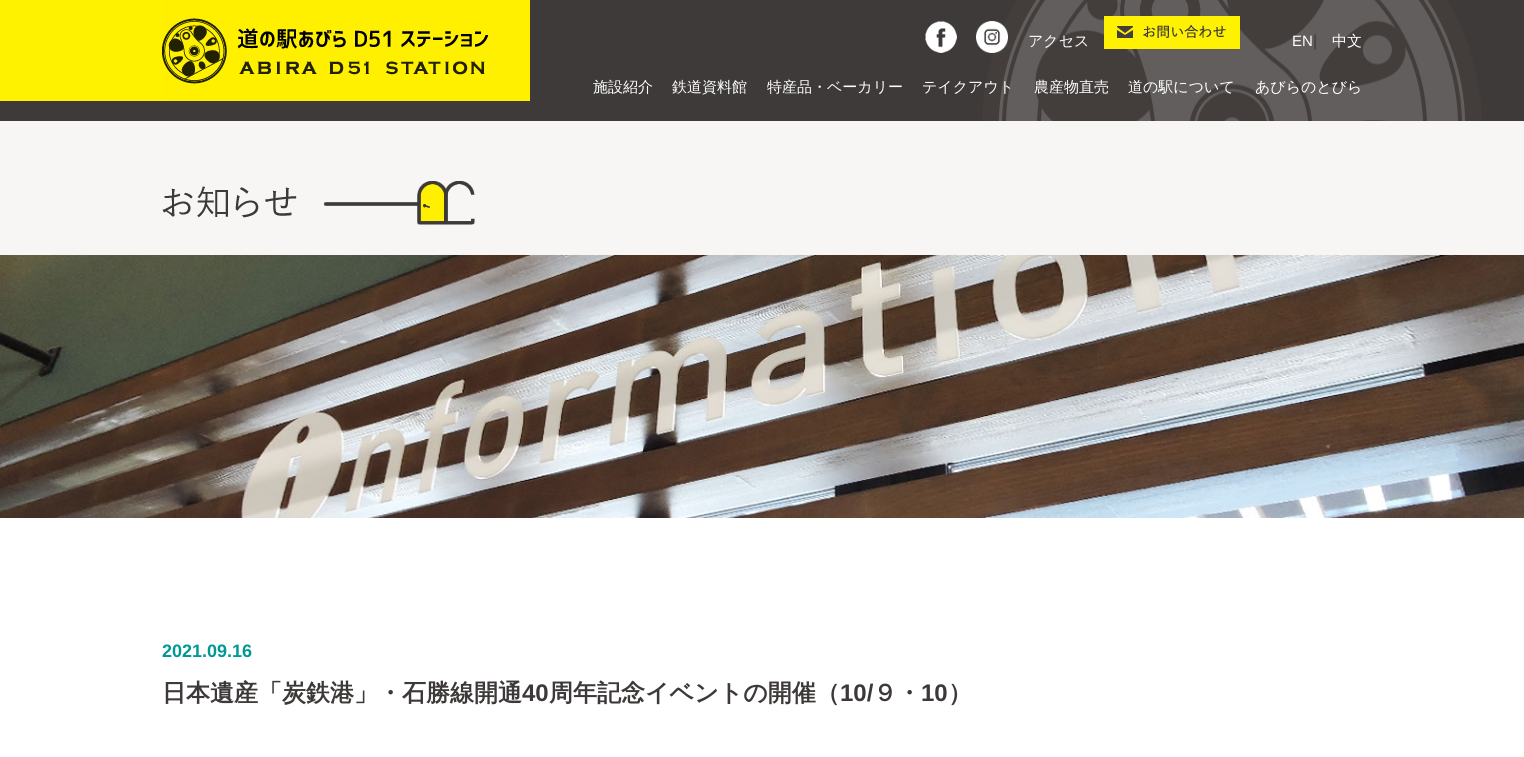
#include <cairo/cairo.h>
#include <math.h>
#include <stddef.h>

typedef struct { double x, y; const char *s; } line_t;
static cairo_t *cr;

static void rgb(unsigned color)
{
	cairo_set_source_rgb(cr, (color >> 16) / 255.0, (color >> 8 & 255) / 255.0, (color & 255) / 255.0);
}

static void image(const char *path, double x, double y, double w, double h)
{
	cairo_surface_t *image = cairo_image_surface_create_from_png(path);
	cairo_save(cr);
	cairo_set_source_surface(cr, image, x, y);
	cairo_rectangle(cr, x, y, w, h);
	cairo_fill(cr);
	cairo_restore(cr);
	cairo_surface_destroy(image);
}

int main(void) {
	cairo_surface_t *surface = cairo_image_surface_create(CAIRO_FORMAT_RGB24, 1524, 757);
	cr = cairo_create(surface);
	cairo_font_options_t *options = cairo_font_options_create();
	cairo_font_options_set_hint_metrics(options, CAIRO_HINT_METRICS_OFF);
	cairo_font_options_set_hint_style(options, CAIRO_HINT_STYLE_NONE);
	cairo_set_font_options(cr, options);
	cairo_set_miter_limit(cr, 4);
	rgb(0xffffff);
	cairo_paint(cr);
	rgb(0x3e3a39);
	cairo_rectangle(cr, 0, 0, 1524, 121);
	cairo_fill(cr);
	image("img/1.png", 982, 0, 500, 121);
	rgb(0xfff200);
	cairo_rectangle(cr, 0, 0, 162, 101);
	cairo_fill(cr);
	image("img/2.png", 162, 0, 368, 101);
	image("img/3.png", 925, 21, 32, 32);
	image("img/4.png", 976, 21, 32, 32);
	image("img/5.png", 1104, 16, 136, 33);
	rgb(0xf8f5f5);
	cairo_rectangle(cr, 0, 121, 1524, 134);
	cairo_fill(cr);
	image("img/6.png", 162, 181, 313, 44);
	image("img/7.png", 0, 255, 1524, 263);
	cairo_select_font_face(cr, "WenQuanYi Zen Hei Medium", CAIRO_FONT_SLANT_NORMAL, CAIRO_FONT_WEIGHT_NORMAL);
	cairo_set_font_size(cr, 15);
	rgb(0xffffff);
	cairo_move_to(cr, 1028, 46);
	cairo_show_text(cr, "アクセス");
	cairo_select_font_face(cr, "Liberation Sans", CAIRO_FONT_SLANT_NORMAL, CAIRO_FONT_WEIGHT_NORMAL);
	cairo_move_to(cr, 1292, 46);
	cairo_show_text(cr, "EN");
	cairo_set_font_size(cr, 16);
	rgb(0x3e3939);
	cairo_move_to(cr, 1313, 46);
	cairo_show_text(cr, "|");
	cairo_select_font_face(cr, "WenQuanYi Zen Hei Medium", CAIRO_FONT_SLANT_NORMAL, CAIRO_FONT_WEIGHT_NORMAL);
	cairo_set_font_size(cr, 15);
	rgb(0xffffff);
	{
		static const line_t items[] = {
			{1332, 46, "中文"},
			{593, 92, "施設紹介"},
			{672, 92, "鉄道資料館"},
			{767, 92, "特産品・ベーカリー"},
			{922, 92, "テイクアウト"},
			{1034, 92, "農産物直売"},
			{1128, 92, "道の駅について"},
			{1255, 92, "あびらのとびら"},
		};
		for (size_t i = 0; i < sizeof items / sizeof *items; i++) {
			cairo_move_to(cr, items[i].x, items[i].y);
			cairo_show_text(cr, items[i].s);
		}
	}
	cairo_select_font_face(cr, "Liberation Sans", CAIRO_FONT_SLANT_NORMAL, CAIRO_FONT_WEIGHT_BOLD);
	cairo_set_font_size(cr, 18);
	rgb(0x009993);
	cairo_move_to(cr, 162, 657);
	cairo_show_text(cr, "2021.09.16");
	cairo_select_font_face(cr, "WenQuanYi Zen Hei", CAIRO_FONT_SLANT_NORMAL, CAIRO_FONT_WEIGHT_BOLD);
	cairo_set_font_size(cr, 24);
	rgb(0x3e3939);
	cairo_move_to(cr, 162, 701);
	cairo_show_text(cr, "日本遺産「炭鉄港」・石勝線開通");
	cairo_select_font_face(cr, "Liberation Sans", CAIRO_FONT_SLANT_NORMAL, CAIRO_FONT_WEIGHT_BOLD);
	cairo_move_to(cr, 522, 701);
	cairo_show_text(cr, "40");
	cairo_select_font_face(cr, "WenQuanYi Zen Hei", CAIRO_FONT_SLANT_NORMAL, CAIRO_FONT_WEIGHT_BOLD);
	cairo_move_to(cr, 549, 701);
	cairo_show_text(cr, "周年記念イベントの開催（");
	cairo_select_font_face(cr, "Liberation Sans", CAIRO_FONT_SLANT_NORMAL, CAIRO_FONT_WEIGHT_BOLD);
	cairo_move_to(cr, 840, 701);
	cairo_show_text(cr, "10/");
	cairo_select_font_face(cr, "WenQuanYi Zen Hei", CAIRO_FONT_SLANT_NORMAL, CAIRO_FONT_WEIGHT_BOLD);
	cairo_move_to(cr, 873, 701);
	cairo_show_text(cr, "９・");
	cairo_select_font_face(cr, "Liberation Sans", CAIRO_FONT_SLANT_NORMAL, CAIRO_FONT_WEIGHT_BOLD);
	cairo_move_to(cr, 921, 701);
	cairo_show_text(cr, "10");
	cairo_select_font_face(cr, "WenQuanYi Zen Hei", CAIRO_FONT_SLANT_NORMAL, CAIRO_FONT_WEIGHT_BOLD);
	cairo_move_to(cr, 948, 701);
	cairo_show_text(cr, "）");
	cairo_surface_write_to_png(surface, "page.png");
	cairo_font_options_destroy(options);
	cairo_destroy(cr);
	cairo_surface_destroy(surface);
	return 0;
}
